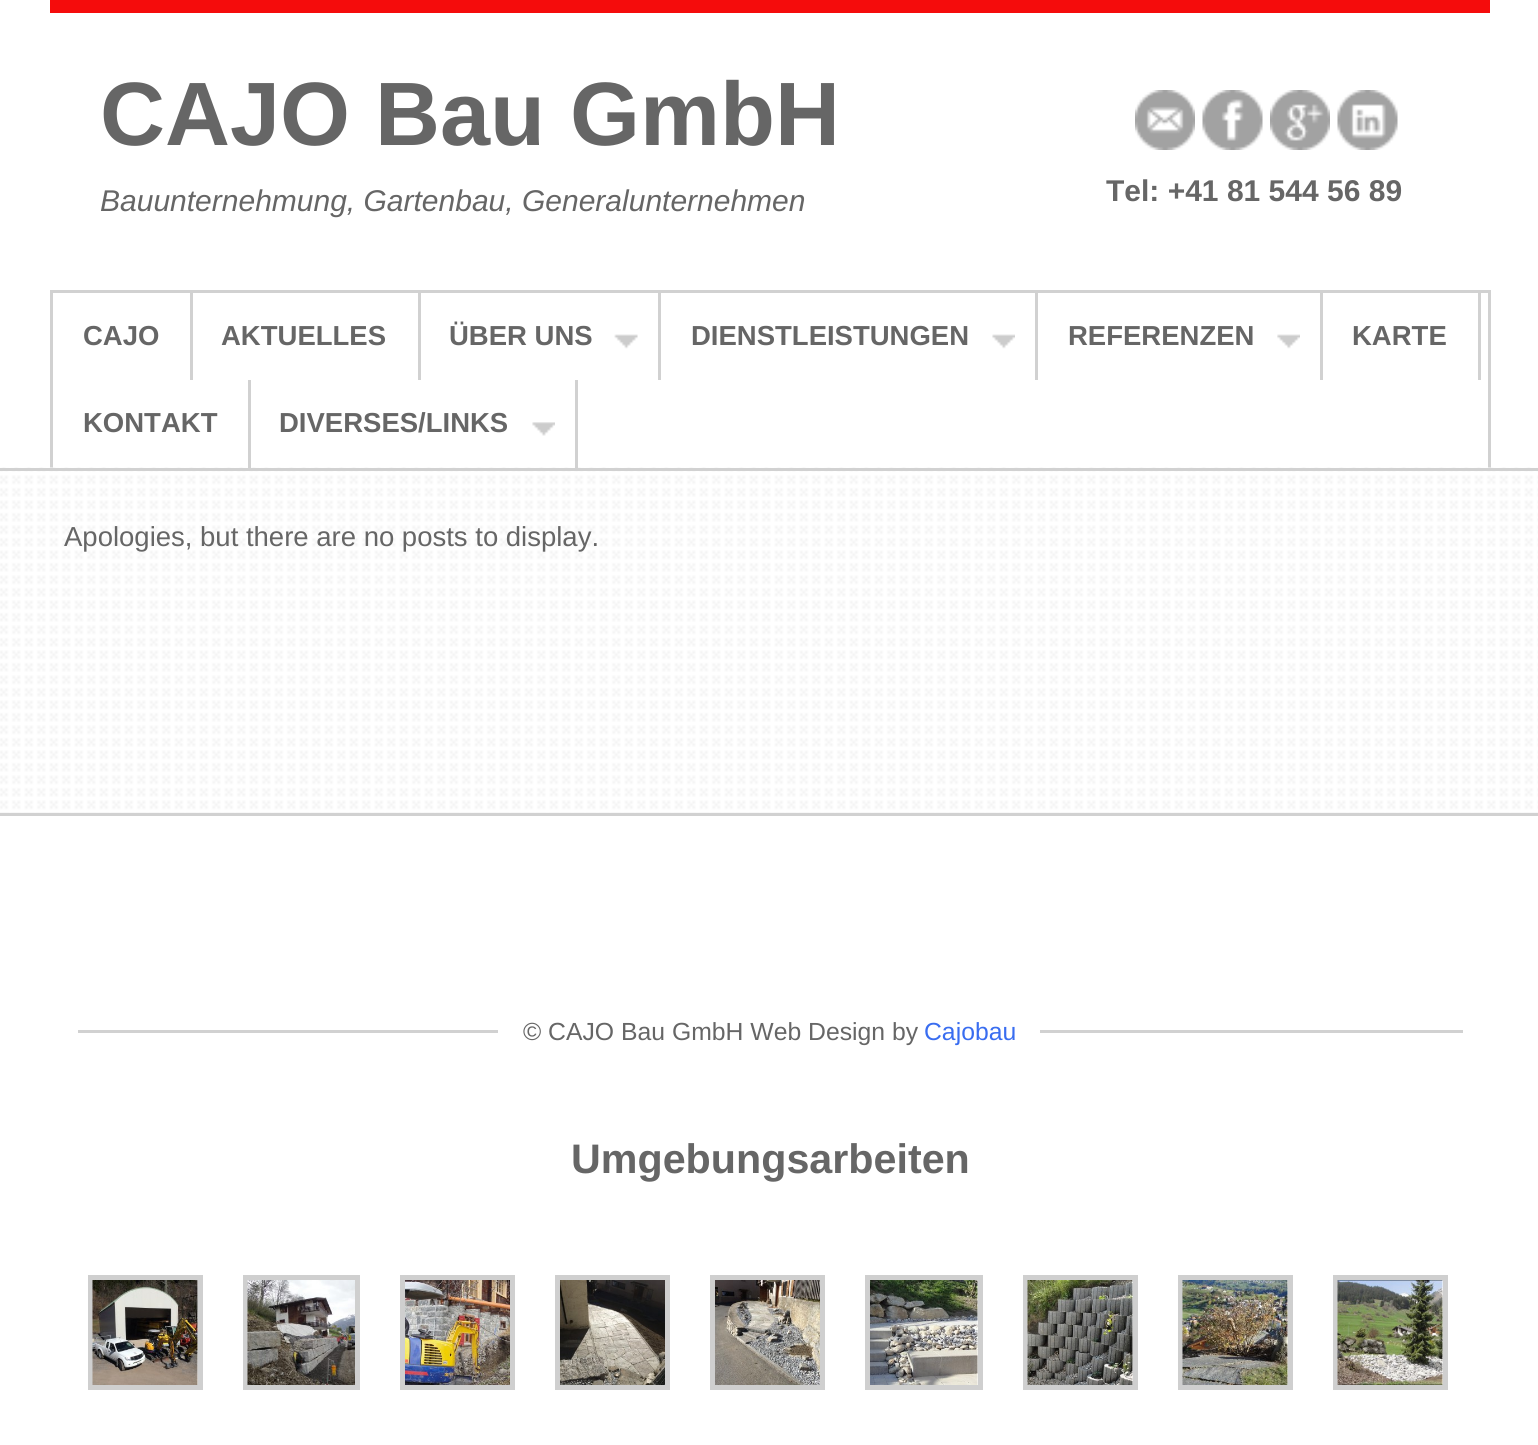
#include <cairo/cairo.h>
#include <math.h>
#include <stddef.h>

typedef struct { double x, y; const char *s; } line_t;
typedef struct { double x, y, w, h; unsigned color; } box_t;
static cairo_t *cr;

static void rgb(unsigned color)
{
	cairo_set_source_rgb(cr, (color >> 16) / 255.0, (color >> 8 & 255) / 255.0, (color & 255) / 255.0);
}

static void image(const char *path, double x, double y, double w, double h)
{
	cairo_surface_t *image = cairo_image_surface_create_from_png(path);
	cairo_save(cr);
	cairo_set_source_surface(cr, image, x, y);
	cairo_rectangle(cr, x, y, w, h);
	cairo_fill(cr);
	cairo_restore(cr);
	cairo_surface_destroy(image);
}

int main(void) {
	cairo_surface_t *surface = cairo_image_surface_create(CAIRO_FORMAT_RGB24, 1538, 1445);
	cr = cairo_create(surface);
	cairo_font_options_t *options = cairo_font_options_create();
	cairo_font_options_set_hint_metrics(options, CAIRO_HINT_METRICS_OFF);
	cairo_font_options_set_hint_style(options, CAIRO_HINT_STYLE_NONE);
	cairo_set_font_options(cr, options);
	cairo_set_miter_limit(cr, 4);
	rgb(0xffffff);
	cairo_paint(cr);
	rgb(0xf50c0c);
	cairo_rectangle(cr, 50, 0, 1440, 13);
	cairo_fill(cr);
	image("img/1.png", 1135, 90, 60, 60);
	image("img/2.png", 1202, 90, 61, 60);
	image("img/3.png", 1270, 90, 60, 60);
	image("img/4.png", 1337, 90, 61, 60);
	{
		static const box_t items[] = {
			{50, 290, 1440, 3, 0xd1d1d1},
			{1488, 290, 3, 178, 0xd1d1d1},
			{50, 290, 3, 178, 0xd1d1d1},
			{190, 293, 3, 87, 0xd1d1d1},
			{418, 293, 3, 87, 0xd1d1d1},
			{658, 293, 3, 87, 0xd1d1d1},
		};
		for (size_t i = 0; i < sizeof items / sizeof *items; i++) {
			rgb(items[i].color);
			cairo_rectangle(cr, items[i].x, items[i].y, items[i].w, items[i].h);
			cairo_fill(cr);
		}
	}
	image("img/5.png", 614, 334, 24, 15);
	cairo_rectangle(cr, 1035, 293, 3, 87);
	cairo_fill(cr);
	image("img/6.png", 992, 334, 23, 15);
	cairo_rectangle(cr, 1320, 293, 3, 87);
	cairo_fill(cr);
	image("img/7.png", 1277, 334, 23, 15);
	cairo_rectangle(cr, 1478, 293, 3, 87);
	cairo_fill(cr);
	rgb(0xf2f2f2);
	cairo_rectangle(cr, 0, 812, 1538, 1);
	cairo_fill(cr);
	image("img/9.png", 0, 467, 1538, 346);
	rgb(0xd1d1d1);
	cairo_rectangle(cr, 248, 380, 3, 88);
	cairo_fill(cr);
	cairo_rectangle(cr, 575, 380, 3, 88);
	cairo_fill(cr);
	image("img/8.png", 532, 422, 23, 14);
	{
		static const box_t items[] = {
			{0, 468, 1538, 3, 0xd1d1d1},
			{0, 813, 1538, 3, 0xd1d1d1},
			{78, 1030, 1385, 3, 0xd1d1d1},
			{498, 1030, 542, 3, 0xffffff},
		};
		for (size_t i = 0; i < sizeof items / sizeof *items; i++) {
			rgb(items[i].color);
			cairo_rectangle(cr, items[i].x, items[i].y, items[i].w, items[i].h);
			cairo_fill(cr);
		}
	}
	cairo_rectangle(cr, 90.5, 1277.5, 110, 110);
	rgb(0xcfcfcf);
	cairo_set_line_width(cr, 5);
	cairo_stroke(cr);
	image("img/10.png", 92, 1280, 106, 105);
	cairo_rectangle(cr, 245.5, 1277.5, 112, 110);
	cairo_stroke(cr);
	image("img/11.png", 247, 1280, 108, 105);
	cairo_rectangle(cr, 402.5, 1277.5, 110, 110);
	cairo_stroke(cr);
	image("img/12.png", 405, 1280, 105, 105);
	cairo_rectangle(cr, 557.5, 1277.5, 110, 110);
	cairo_stroke(cr);
	image("img/13.png", 560, 1280, 105, 105);
	cairo_rectangle(cr, 712.5, 1277.5, 110, 110);
	cairo_stroke(cr);
	image("img/14.png", 715, 1280, 105, 105);
	cairo_rectangle(cr, 867.5, 1277.5, 113, 110);
	cairo_stroke(cr);
	image("img/15.png", 870, 1280, 108, 105);
	cairo_rectangle(cr, 1025.5, 1277.5, 110, 110);
	cairo_stroke(cr);
	image("img/16.png", 1027, 1280, 106, 105);
	cairo_rectangle(cr, 1180.5, 1277.5, 110, 110);
	cairo_stroke(cr);
	image("img/17.png", 1182, 1280, 106, 105);
	cairo_rectangle(cr, 1335.5, 1277.5, 110, 110);
	cairo_stroke(cr);
	image("img/18.png", 1337, 1280, 106, 105);
	cairo_select_font_face(cr, "Liberation Sans", CAIRO_FONT_SLANT_NORMAL, CAIRO_FONT_WEIGHT_BOLD);
	cairo_set_font_size(cr, 90);
	rgb(0x666666);
	cairo_move_to(cr, 100, 145);
	cairo_show_text(cr, "CAJO Bau GmbH");
	cairo_select_font_face(cr, "Liberation Sans", CAIRO_FONT_SLANT_ITALIC, CAIRO_FONT_WEIGHT_NORMAL);
	cairo_set_font_size(cr, 30);
	cairo_move_to(cr, 100, 211);
	cairo_show_text(cr, "Bauunternehmung, Gartenbau, Generalunternehmen");
	cairo_select_font_face(cr, "Liberation Sans", CAIRO_FONT_SLANT_NORMAL, CAIRO_FONT_WEIGHT_BOLD);
	cairo_move_to(cr, 1106, 201);
	cairo_show_text(cr, "Tel: +41 81 544 56 89");
	cairo_set_font_size(cr, 27.5);
	{
		static const line_t items[] = {
			{83, 345, "CAJO"},
			{221, 345, "AKTUELLES"},
			{449, 345, "ÜBER UNS"},
			{691, 345, "DIENSTLEISTUNGEN"},
			{1068, 345, "REFERENZEN"},
			{1352, 345, "KARTE"},
			{83, 432, "KONTAKT"},
			{279, 432, "DIVERSES/LINKS"},
		};
		for (size_t i = 0; i < sizeof items / sizeof *items; i++) {
			cairo_move_to(cr, items[i].x, items[i].y);
			cairo_show_text(cr, items[i].s);
		}
	}
	cairo_select_font_face(cr, "Liberation Sans", CAIRO_FONT_SLANT_NORMAL, CAIRO_FONT_WEIGHT_NORMAL);
	cairo_move_to(cr, 64, 546);
	cairo_show_text(cr, "Apologies, but there are no posts to display.");
	cairo_set_font_size(cr, 24.75);
	cairo_move_to(cr, 523, 1040);
	cairo_show_text(cr, "© CAJO Bau GmbH Web Design by");
	rgb(0x396df0);
	cairo_move_to(cr, 924, 1040);
	cairo_show_text(cr, "Cajobau");
	cairo_select_font_face(cr, "Liberation Sans", CAIRO_FONT_SLANT_NORMAL, CAIRO_FONT_WEIGHT_BOLD);
	cairo_set_font_size(cr, 41.25);
	rgb(0x666666);
	cairo_move_to(cr, 571, 1173);
	cairo_show_text(cr, "Umgebungsarbeiten");
	cairo_surface_write_to_png(surface, "page.png");
	cairo_font_options_destroy(options);
	cairo_destroy(cr);
	cairo_surface_destroy(surface);
	return 0;
}
